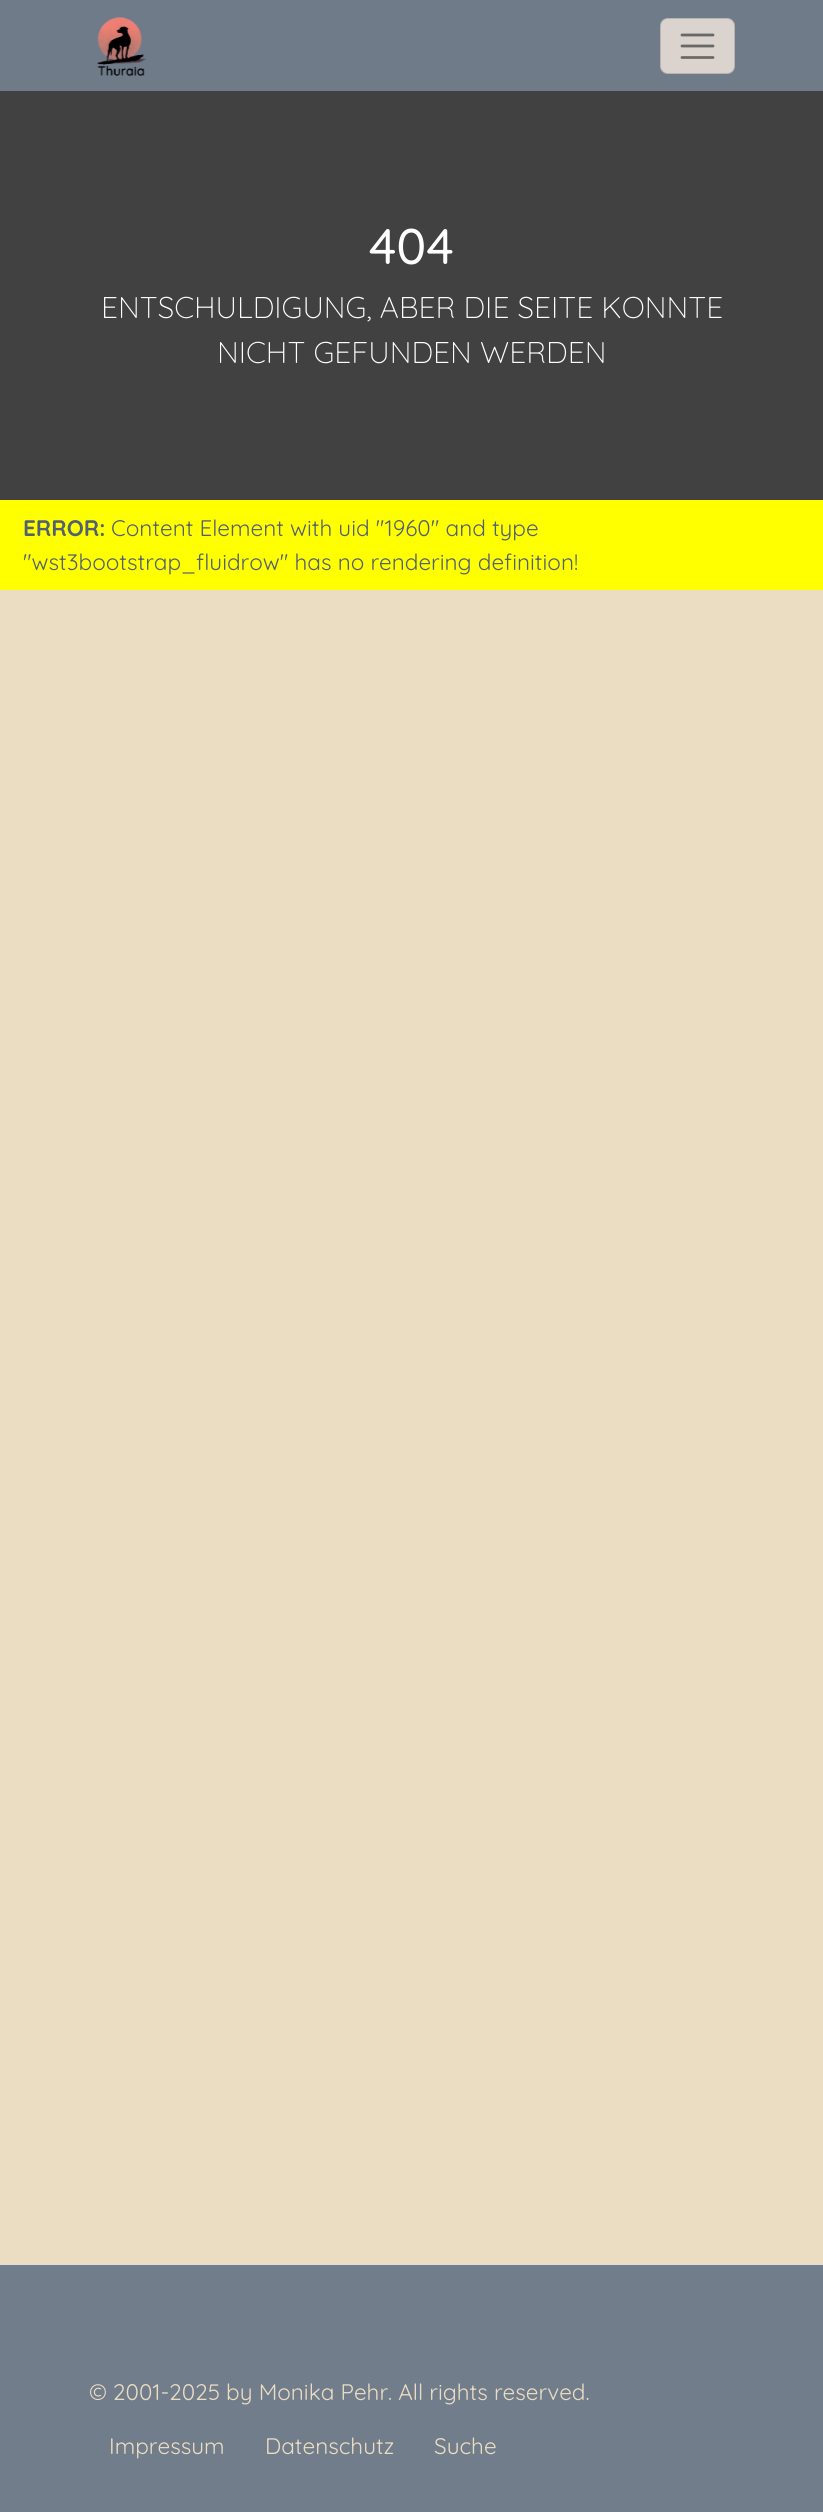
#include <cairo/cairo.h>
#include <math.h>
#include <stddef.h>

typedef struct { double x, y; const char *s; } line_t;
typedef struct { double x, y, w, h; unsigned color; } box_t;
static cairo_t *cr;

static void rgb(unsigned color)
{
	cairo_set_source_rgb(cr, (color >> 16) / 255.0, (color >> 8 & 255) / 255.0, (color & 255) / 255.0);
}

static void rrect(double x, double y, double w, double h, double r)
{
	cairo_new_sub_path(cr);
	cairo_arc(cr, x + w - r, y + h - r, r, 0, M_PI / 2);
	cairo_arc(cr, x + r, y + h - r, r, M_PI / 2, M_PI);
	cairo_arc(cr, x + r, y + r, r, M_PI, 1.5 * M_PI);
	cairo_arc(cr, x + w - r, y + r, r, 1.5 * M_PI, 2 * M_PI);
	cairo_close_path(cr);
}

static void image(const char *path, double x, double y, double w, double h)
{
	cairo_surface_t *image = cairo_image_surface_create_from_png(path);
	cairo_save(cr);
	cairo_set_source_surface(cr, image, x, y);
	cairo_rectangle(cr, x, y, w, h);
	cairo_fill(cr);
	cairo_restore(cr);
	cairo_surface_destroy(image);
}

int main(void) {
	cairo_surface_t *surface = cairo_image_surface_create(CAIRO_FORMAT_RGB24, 823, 2512);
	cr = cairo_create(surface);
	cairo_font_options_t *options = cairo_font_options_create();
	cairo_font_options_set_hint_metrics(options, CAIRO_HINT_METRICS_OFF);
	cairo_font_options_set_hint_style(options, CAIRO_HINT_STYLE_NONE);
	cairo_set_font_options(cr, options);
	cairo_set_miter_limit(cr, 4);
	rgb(0xebddc2);
	cairo_paint(cr);
	rgb(0x707b8a);
	cairo_rectangle(cr, 0, 0, 823, 91);
	cairo_fill(cr);
	image("img/1.png", 97, 17, 50, 59);
	rgb(0xdbd4ce);
	rrect(660, 18, 75, 56, 8);
	cairo_fill(cr);
	rrect(660.5, 18.5, 74, 55, 7.5);
	cairo_set_source_rgba(cr, 0, 0, 0, 0.15);
	cairo_set_line_width(cr, 1);
	cairo_stroke(cr);
	cairo_new_path(cr);
	cairo_move_to(cr, 682, 35);
	cairo_line_to(cr, 713, 35);
	cairo_move_to(cr, 682, 46);
	cairo_line_to(cr, 713, 46);
	cairo_move_to(cr, 682, 57.5);
	cairo_line_to(cr, 713, 57.5);
	rgb(0x6a6867);
	cairo_set_line_width(cr, 2.8);
	cairo_set_line_cap(cr, CAIRO_LINE_CAP_ROUND);
	cairo_stroke(cr);
	{
		static const box_t items[] = {
			{0, 91, 823, 409, 0x414141},
			{0, 500, 823, 90, 0xffff00},
			{0, 2265, 823, 247, 0x717d8b},
			{0, 2264, 823, 1, 0xdddddd},
		};
		for (size_t i = 0; i < sizeof items / sizeof *items; i++) {
			rgb(items[i].color);
			cairo_rectangle(cr, items[i].x, items[i].y, items[i].w, items[i].h);
			cairo_fill(cr);
		}
	}
	cairo_select_font_face(cr, "Quicksand Medium", CAIRO_FONT_SLANT_NORMAL, CAIRO_FONT_WEIGHT_NORMAL);
	cairo_set_font_size(cr, 50);
	rgb(0xffffff);
	cairo_move_to(cr, 369, 264);
	cairo_show_text(cr, "404");
	cairo_select_font_face(cr, "Quicksand Light", CAIRO_FONT_SLANT_NORMAL, CAIRO_FONT_WEIGHT_NORMAL);
	cairo_set_font_size(cr, 30);
	cairo_move_to(cr, 101, 318);
	cairo_show_text(cr, "ENTSCHULDIGUNG, ABER DIE SEITE KONNTE");
	cairo_move_to(cr, 217, 363);
	cairo_show_text(cr, "NICHT GEFUNDEN WERDEN");
	cairo_select_font_face(cr, "Quicksand", CAIRO_FONT_SLANT_NORMAL, CAIRO_FONT_WEIGHT_BOLD);
	cairo_set_font_size(cr, 22.5);
	rgb(0x526073);
	cairo_move_to(cr, 23, 536);
	cairo_show_text(cr, "ERROR:");
	cairo_select_font_face(cr, "Quicksand", CAIRO_FONT_SLANT_NORMAL, CAIRO_FONT_WEIGHT_NORMAL);
	cairo_move_to(cr, 111, 536);
	cairo_show_text(cr, "Content Element with uid \"1960\" and type");
	cairo_move_to(cr, 23, 570);
	cairo_show_text(cr, "\"wst3bootstrap_fluidrow\" has no rendering definition!");
	rgb(0xebddc2);
	{
		static const line_t items[] = {
			{89, 2400, "© 2001-2025 by Monika Pehr. All rights reserved."},
			{109, 2454, "Impressum"},
			{265, 2454, "Datenschutz"},
			{434, 2454, "Suche"},
		};
		for (size_t i = 0; i < sizeof items / sizeof *items; i++) {
			cairo_move_to(cr, items[i].x, items[i].y);
			cairo_show_text(cr, items[i].s);
		}
	}
	cairo_surface_write_to_png(surface, "page.png");
	cairo_font_options_destroy(options);
	cairo_destroy(cr);
	cairo_surface_destroy(surface);
	return 0;
}
